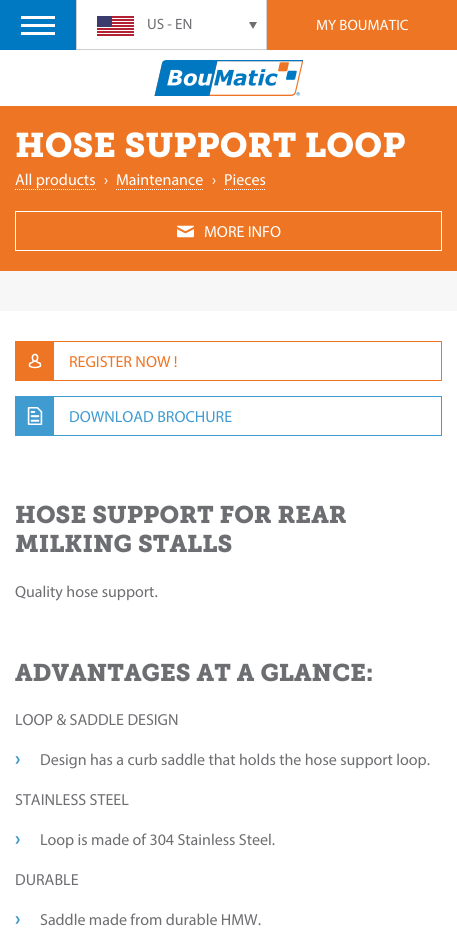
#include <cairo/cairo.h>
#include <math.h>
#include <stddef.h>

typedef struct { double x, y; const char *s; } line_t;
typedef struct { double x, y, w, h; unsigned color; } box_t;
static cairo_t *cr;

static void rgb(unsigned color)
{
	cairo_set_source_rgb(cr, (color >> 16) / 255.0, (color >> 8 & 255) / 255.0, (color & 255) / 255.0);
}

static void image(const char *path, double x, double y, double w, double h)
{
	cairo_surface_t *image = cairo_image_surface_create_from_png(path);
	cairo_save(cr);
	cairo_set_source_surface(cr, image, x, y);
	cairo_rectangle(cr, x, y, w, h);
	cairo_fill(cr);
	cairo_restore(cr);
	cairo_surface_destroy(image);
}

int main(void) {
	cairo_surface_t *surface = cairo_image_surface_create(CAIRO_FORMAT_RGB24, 457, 938);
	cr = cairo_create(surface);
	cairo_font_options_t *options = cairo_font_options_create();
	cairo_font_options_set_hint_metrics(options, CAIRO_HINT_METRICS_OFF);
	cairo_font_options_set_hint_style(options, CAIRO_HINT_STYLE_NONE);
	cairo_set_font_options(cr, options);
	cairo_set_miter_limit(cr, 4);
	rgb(0xf7f7f7);
	cairo_paint(cr);
	{
		static const box_t items[] = {
			{77, 0, 189, 49, 0xffffff},
			{0, 0, 76, 50, 0x0079c2},
			{21, 16, 34, 3, 0xffffff},
			{21, 24, 34, 3, 0xffffff},
			{21, 32, 34, 3, 0xffffff},
			{266, 0, 1, 50, 0xcfcfcf},
			{76, 49, 191, 1, 0xcfcfcf},
			{76, 0, 1, 50, 0xcfcfcf},
		};
		for (size_t i = 0; i < sizeof items / sizeof *items; i++) {
			rgb(items[i].color);
			cairo_rectangle(cr, items[i].x, items[i].y, items[i].w, items[i].h);
			cairo_fill(cr);
		}
	}
	image("img/1.png", 97, 16, 37, 20);
	image("img/2.png", 249, 22, 8, 7);
	rgb(0xee7523);
	cairo_rectangle(cr, 267, 0, 190, 50);
	cairo_fill(cr);
	rgb(0xffffff);
	cairo_rectangle(cr, 0, 50, 457, 56);
	cairo_fill(cr);
	image("img/3.png", 154, 60, 149, 36);
	rgb(0xee7523);
	cairo_rectangle(cr, 0, 106, 457, 165);
	cairo_fill(cr);
	cairo_new_path(cr);
	cairo_move_to(cr, 15, 189.5);
	cairo_line_to(cr, 96, 189.5);
	rgb(0xffffff);
	cairo_set_line_width(cr, 1);
	cairo_set_dash(cr, (double[]){1, 1}, 2, 0);
	cairo_stroke(cr);
	cairo_new_path(cr);
	cairo_move_to(cr, 116, 189.5);
	cairo_line_to(cr, 204, 189.5);
	cairo_stroke(cr);
	cairo_new_path(cr);
	cairo_move_to(cr, 224, 189.5);
	cairo_line_to(cr, 266, 189.5);
	cairo_stroke(cr);
	cairo_rectangle(cr, 15.5, 211.5, 426, 39);
	cairo_set_dash(cr, NULL, 0, 0);
	cairo_stroke(cr);
	image("img/4.png", 177, 225, 17, 13);
	cairo_rectangle(cr, 0, 311, 457, 627);
	cairo_fill(cr);
	cairo_rectangle(cr, 15.5, 341.5, 426, 39);
	rgb(0xee7523);
	cairo_stroke(cr);
	cairo_rectangle(cr, 16, 342, 38, 38);
	cairo_fill(cr);
	image("img/5.png", 28, 353, 14, 16);
	cairo_rectangle(cr, 15.5, 396.5, 426, 39);
	rgb(0x409bd1);
	cairo_stroke(cr);
	cairo_rectangle(cr, 16, 397, 38, 38);
	cairo_fill(cr);
	image("img/6.png", 27, 407, 16, 18);
	cairo_select_font_face(cr, "Myriad", CAIRO_FONT_SLANT_NORMAL, CAIRO_FONT_WEIGHT_NORMAL);
	cairo_set_font_size(cr, 15);
	rgb(0x6d6e71);
	cairo_move_to(cr, 147, 29);
	cairo_show_text(cr, "US - EN");
	rgb(0xffffff);
	cairo_move_to(cr, 316, 30);
	cairo_show_text(cr, "MY BOUMATIC");
	cairo_select_font_face(cr, "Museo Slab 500", CAIRO_FONT_SLANT_NORMAL, CAIRO_FONT_WEIGHT_BOLD);
	cairo_set_font_size(cr, 34);
	cairo_move_to(cr, 15, 157);
	cairo_show_text(cr, "HOSE SUPPORT LOOP");
	cairo_select_font_face(cr, "Myriad", CAIRO_FONT_SLANT_NORMAL, CAIRO_FONT_WEIGHT_NORMAL);
	cairo_set_font_size(cr, 16);
	{
		static const line_t items[] = {
			{15, 185, "All products"},
			{104, 185, "›"},
			{116, 185, "Maintenance"},
			{212, 185, "›"},
			{224, 185, "Pieces"},
			{204, 237, "MORE INFO"},
		};
		for (size_t i = 0; i < sizeof items / sizeof *items; i++) {
			cairo_move_to(cr, items[i].x, items[i].y);
			cairo_show_text(cr, items[i].s);
		}
	}
	rgb(0xee7523);
	cairo_move_to(cr, 69, 367);
	cairo_show_text(cr, "REGISTER NOW !");
	rgb(0x409bd1);
	cairo_move_to(cr, 69, 422);
	cairo_show_text(cr, "DOWNLOAD BROCHURE");
	cairo_select_font_face(cr, "Museo Slab 500", CAIRO_FONT_SLANT_NORMAL, CAIRO_FONT_WEIGHT_BOLD);
	cairo_set_font_size(cr, 24);
	rgb(0x6d6e71);
	cairo_move_to(cr, 15, 523);
	cairo_show_text(cr, "HOSE SUPPORT FOR REAR");
	cairo_move_to(cr, 15, 552);
	cairo_show_text(cr, "MILKING STALLS");
	cairo_select_font_face(cr, "Myriad", CAIRO_FONT_SLANT_NORMAL, CAIRO_FONT_WEIGHT_NORMAL);
	cairo_set_font_size(cr, 16);
	cairo_move_to(cr, 15, 597);
	cairo_show_text(cr, "Quality hose support.");
	cairo_select_font_face(cr, "Museo Slab 500", CAIRO_FONT_SLANT_NORMAL, CAIRO_FONT_WEIGHT_BOLD);
	cairo_set_font_size(cr, 24);
	cairo_move_to(cr, 15, 681);
	cairo_show_text(cr, "ADVANTAGES AT A GLANCE:");
	cairo_select_font_face(cr, "Myriad", CAIRO_FONT_SLANT_NORMAL, CAIRO_FONT_WEIGHT_NORMAL);
	cairo_set_font_size(cr, 16);
	cairo_move_to(cr, 15, 725);
	cairo_show_text(cr, "LOOP & SADDLE DESIGN");
	cairo_select_font_face(cr, "Myriad", CAIRO_FONT_SLANT_NORMAL, CAIRO_FONT_WEIGHT_BOLD);
	cairo_set_font_size(cr, 20);
	rgb(0x409bd1);
	cairo_move_to(cr, 15, 765);
	cairo_show_text(cr, "›");
	cairo_select_font_face(cr, "Myriad", CAIRO_FONT_SLANT_NORMAL, CAIRO_FONT_WEIGHT_NORMAL);
	cairo_set_font_size(cr, 16);
	rgb(0x6d6e71);
	cairo_move_to(cr, 40, 765);
	cairo_show_text(cr, "Design has a curb saddle that holds the hose support loop.");
	cairo_move_to(cr, 15, 805);
	cairo_show_text(cr, "STAINLESS STEEL");
	cairo_select_font_face(cr, "Myriad", CAIRO_FONT_SLANT_NORMAL, CAIRO_FONT_WEIGHT_BOLD);
	cairo_set_font_size(cr, 20);
	rgb(0x409bd1);
	cairo_move_to(cr, 15, 845);
	cairo_show_text(cr, "›");
	cairo_select_font_face(cr, "Myriad", CAIRO_FONT_SLANT_NORMAL, CAIRO_FONT_WEIGHT_NORMAL);
	cairo_set_font_size(cr, 16);
	rgb(0x6d6e71);
	cairo_move_to(cr, 40, 845);
	cairo_show_text(cr, "Loop is made of 304 Stainless Steel.");
	cairo_move_to(cr, 15, 885);
	cairo_show_text(cr, "DURABLE");
	cairo_select_font_face(cr, "Myriad", CAIRO_FONT_SLANT_NORMAL, CAIRO_FONT_WEIGHT_BOLD);
	cairo_set_font_size(cr, 20);
	rgb(0x409bd1);
	cairo_move_to(cr, 15, 925);
	cairo_show_text(cr, "›");
	cairo_select_font_face(cr, "Myriad", CAIRO_FONT_SLANT_NORMAL, CAIRO_FONT_WEIGHT_NORMAL);
	cairo_set_font_size(cr, 16);
	rgb(0x6d6e71);
	cairo_move_to(cr, 40, 925);
	cairo_show_text(cr, "Saddle made from durable HMW.");
	cairo_surface_write_to_png(surface, "page.png");
	cairo_font_options_destroy(options);
	cairo_destroy(cr);
	cairo_surface_destroy(surface);
	return 0;
}
